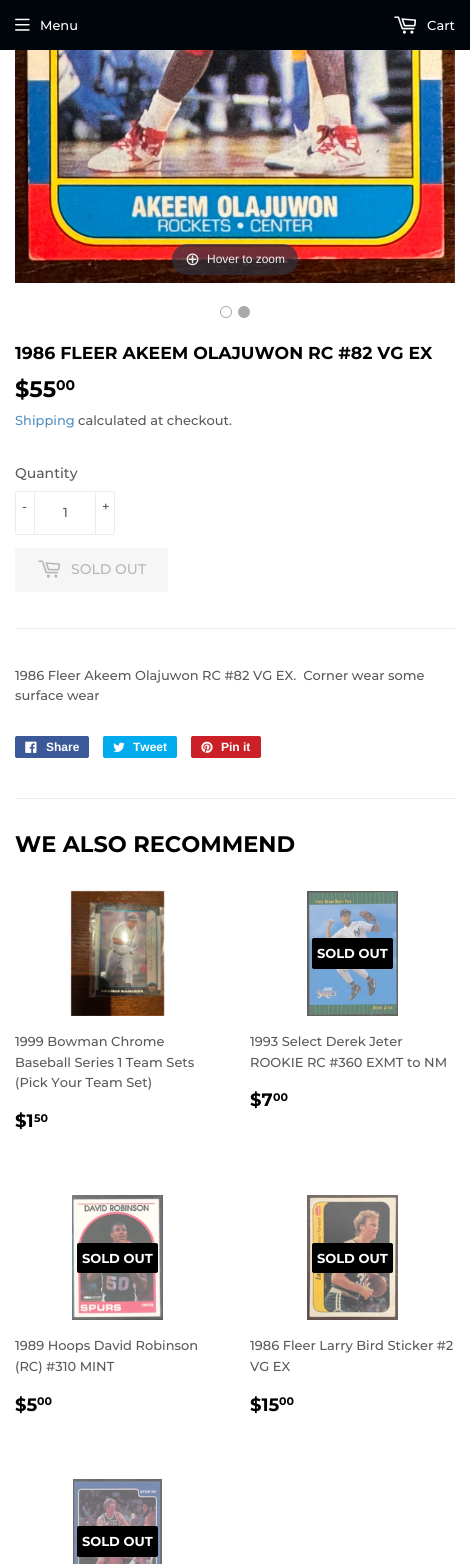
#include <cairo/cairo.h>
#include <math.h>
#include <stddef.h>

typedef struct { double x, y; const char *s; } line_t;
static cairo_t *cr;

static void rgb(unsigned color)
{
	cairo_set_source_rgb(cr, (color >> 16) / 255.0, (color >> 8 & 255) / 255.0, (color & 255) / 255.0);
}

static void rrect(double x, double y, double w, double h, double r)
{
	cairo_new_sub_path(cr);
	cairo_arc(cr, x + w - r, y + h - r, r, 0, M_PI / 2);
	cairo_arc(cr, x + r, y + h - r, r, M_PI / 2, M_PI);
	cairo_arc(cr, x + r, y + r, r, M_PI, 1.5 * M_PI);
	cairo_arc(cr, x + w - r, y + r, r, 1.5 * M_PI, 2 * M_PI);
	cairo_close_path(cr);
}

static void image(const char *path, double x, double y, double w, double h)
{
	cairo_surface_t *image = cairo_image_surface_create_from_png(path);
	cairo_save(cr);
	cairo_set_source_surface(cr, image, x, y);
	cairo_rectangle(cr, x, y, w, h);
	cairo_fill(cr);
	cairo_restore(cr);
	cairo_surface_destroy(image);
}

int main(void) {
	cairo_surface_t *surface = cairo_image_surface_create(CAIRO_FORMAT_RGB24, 470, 1564);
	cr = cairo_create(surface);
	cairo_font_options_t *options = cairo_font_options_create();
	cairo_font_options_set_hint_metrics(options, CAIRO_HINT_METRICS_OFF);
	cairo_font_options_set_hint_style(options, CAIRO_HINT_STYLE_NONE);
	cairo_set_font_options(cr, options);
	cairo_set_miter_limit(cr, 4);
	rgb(0xffffff);
	cairo_paint(cr);
	rgb(0x00050b);
	cairo_rectangle(cr, 0, 0, 470, 50);
	cairo_fill(cr);
	image("img/1.png", 15, 18, 15, 13);
	image("img/2.png", 394, 16, 23, 18);
	image("img/3.png", 15, 50, 440, 233);
	cairo_set_source_rgba(cr, 0.192, 0.2, 0.239, 0.7);
	rrect(172, 244, 126, 31, 15.5);
	cairo_fill(cr);
	rgb(0xaaaaaa);
	cairo_arc(cr, 226, 312, 6, 0, 2 * M_PI);
	cairo_fill(cr);
	rgb(0xffffff);
	cairo_arc(cr, 226, 312, 5, 0, 2 * M_PI);
	cairo_fill(cr);
	rgb(0xaaaaaa);
	cairo_arc(cr, 244, 312, 6, 0, 2 * M_PI);
	cairo_fill(cr);
	rrect(15.5, 491.5, 99, 43, 1.5);
	rgb(0xececec);
	cairo_set_line_width(cr, 1);
	cairo_stroke(cr);
	cairo_rectangle(cr, 34, 491, 1, 44);
	cairo_fill(cr);
	cairo_rectangle(cr, 95, 491, 1, 44);
	cairo_fill(cr);
	rgb(0xf6f6f6);
	rrect(15, 548, 153, 44, 2);
	cairo_fill(cr);
	image("img/4.png", 38, 560, 23, 18);
	rgb(0xececec);
	cairo_rectangle(cr, 15, 628, 440, 1);
	cairo_fill(cr);
	rgb(0x3b5998);
	rrect(15, 736, 74, 22, 2);
	cairo_fill(cr);
	image("img/5.png", 25, 741, 12, 12);
	rgb(0x00aced);
	rrect(103, 736, 74, 22, 2);
	cairo_fill(cr);
	image("img/6.png", 113, 742, 12, 10);
	rgb(0xcb2027);
	rrect(191, 736, 70, 22, 2);
	cairo_fill(cr);
	image("img/7.png", 201, 741, 12, 12);
	rgb(0xececec);
	cairo_rectangle(cr, 15, 798, 440, 1);
	cairo_fill(cr);
	image("img/8.png", 70, 890, 95, 126);
	image("img/9.png", 307, 891, 91, 125);
	rgb(0x000000);
	rrect(312, 938, 81, 31, 2);
	cairo_fill(cr);
	image("img/10.png", 72, 1195, 91, 125);
	rrect(77, 1243, 81, 30, 2);
	cairo_fill(cr);
	image("img/11.png", 307, 1195, 91, 125);
	rrect(312, 1243, 81, 30, 2);
	cairo_fill(cr);
	image("img/12.png", 73, 1479, 89, 85);
	rrect(77, 1526, 81, 31, 2);
	cairo_fill(cr);
	cairo_select_font_face(cr, "Montserrat Medium", CAIRO_FONT_SLANT_NORMAL, CAIRO_FONT_WEIGHT_NORMAL);
	cairo_set_font_size(cr, 13);
	rgb(0xffffff);
	cairo_move_to(cr, 40, 30);
	cairo_show_text(cr, "Menu");
	cairo_move_to(cr, 427, 30);
	cairo_show_text(cr, "Cart");
	cairo_select_font_face(cr, "DejaVu Sans", CAIRO_FONT_SLANT_NORMAL, CAIRO_FONT_WEIGHT_NORMAL);
	cairo_set_font_size(cr, 18);
	rgb(0xeeeeee);
	cairo_move_to(cr, 185, 265);
	cairo_show_text(cr, "⊕");
	cairo_select_font_face(cr, "Liberation Sans", CAIRO_FONT_SLANT_NORMAL, CAIRO_FONT_WEIGHT_NORMAL);
	cairo_set_font_size(cr, 12);
	cairo_move_to(cr, 207, 263);
	cairo_show_text(cr, "Hover to zoom");
	cairo_select_font_face(cr, "Montserrat", CAIRO_FONT_SLANT_NORMAL, CAIRO_FONT_WEIGHT_BOLD);
	cairo_set_font_size(cr, 17.3);
	rgb(0x000000);
	cairo_move_to(cr, 15, 359);
	cairo_show_text(cr, "1986 FLEER AKEEM OLAJUWON RC #82 VG EX");
	cairo_set_font_size(cr, 22.5);
	cairo_move_to(cr, 15, 397);
	cairo_show_text(cr, "$55");
	cairo_set_font_size(cr, 14);
	cairo_move_to(cr, 56, 390);
	cairo_show_text(cr, "00");
	cairo_select_font_face(cr, "Montserrat Medium", CAIRO_FONT_SLANT_NORMAL, CAIRO_FONT_WEIGHT_NORMAL);
	cairo_set_font_size(cr, 13);
	rgb(0x528ec1);
	cairo_move_to(cr, 15, 425);
	cairo_show_text(cr, "Shipping");
	rgb(0x585858);
	cairo_move_to(cr, 78, 425);
	cairo_show_text(cr, "calculated at checkout.");
	cairo_set_font_size(cr, 14);
	cairo_move_to(cr, 15, 478);
	cairo_show_text(cr, "Quantity");
	cairo_set_font_size(cr, 13);
	{
		static const line_t items[] = {
			{22, 511, "-"},
			{63, 517, "1"},
			{102, 511, "+"},
		};
		for (size_t i = 0; i < sizeof items / sizeof *items; i++) {
			cairo_move_to(cr, items[i].x, items[i].y);
			cairo_show_text(cr, items[i].s);
		}
	}
	cairo_set_font_size(cr, 14);
	rgb(0xb6b6b6);
	cairo_move_to(cr, 71, 574);
	cairo_show_text(cr, "SOLD OUT");
	cairo_set_font_size(cr, 13);
	rgb(0x585858);
	cairo_move_to(cr, 15, 680);
	cairo_show_text(cr, "1986 Fleer Akeem Olajuwon RC #82 VG EX.  Corner wear some");
	cairo_move_to(cr, 15, 700);
	cairo_show_text(cr, "surface wear");
	cairo_select_font_face(cr, "Liberation Sans", CAIRO_FONT_SLANT_NORMAL, CAIRO_FONT_WEIGHT_BOLD);
	cairo_set_font_size(cr, 12);
	rgb(0xffffff);
	{
		static const line_t items[] = {
			{46, 751, "Share"},
			{133, 751, "Tweet"},
			{221, 751, "Pin it"},
		};
		for (size_t i = 0; i < sizeof items / sizeof *items; i++) {
			cairo_move_to(cr, items[i].x, items[i].y);
			cairo_show_text(cr, items[i].s);
		}
	}
	cairo_select_font_face(cr, "Montserrat", CAIRO_FONT_SLANT_NORMAL, CAIRO_FONT_WEIGHT_BOLD);
	cairo_set_font_size(cr, 22.5);
	rgb(0x000000);
	cairo_move_to(cr, 15, 852);
	cairo_show_text(cr, "WE ALSO RECOMMEND");
	cairo_select_font_face(cr, "Montserrat Medium", CAIRO_FONT_SLANT_NORMAL, CAIRO_FONT_WEIGHT_NORMAL);
	cairo_set_font_size(cr, 13);
	rgb(0x585858);
	{
		static const line_t items[] = {
			{15, 1046, "1999 Bowman Chrome"},
			{15, 1067, "Baseball Series 1 Team Sets"},
			{15, 1087, "(Pick Your Team Set)"},
		};
		for (size_t i = 0; i < sizeof items / sizeof *items; i++) {
			cairo_move_to(cr, items[i].x, items[i].y);
			cairo_show_text(cr, items[i].s);
		}
	}
	cairo_select_font_face(cr, "Montserrat", CAIRO_FONT_SLANT_NORMAL, CAIRO_FONT_WEIGHT_BOLD);
	cairo_set_font_size(cr, 18);
	rgb(0x000000);
	cairo_move_to(cr, 15, 1127);
	cairo_show_text(cr, "$1");
	cairo_set_font_size(cr, 11);
	cairo_move_to(cr, 34, 1122);
	cairo_show_text(cr, "50");
	cairo_set_font_size(cr, 13);
	rgb(0xffffff);
	cairo_move_to(cr, 317, 958);
	cairo_show_text(cr, "SOLD OUT");
	cairo_select_font_face(cr, "Montserrat Medium", CAIRO_FONT_SLANT_NORMAL, CAIRO_FONT_WEIGHT_NORMAL);
	rgb(0x585858);
	cairo_move_to(cr, 250, 1046);
	cairo_show_text(cr, "1993 Select Derek Jeter");
	cairo_move_to(cr, 250, 1067);
	cairo_show_text(cr, "ROOKIE RC #360 EXMT to NM");
	cairo_select_font_face(cr, "Montserrat", CAIRO_FONT_SLANT_NORMAL, CAIRO_FONT_WEIGHT_BOLD);
	cairo_set_font_size(cr, 18);
	rgb(0x000000);
	cairo_move_to(cr, 250, 1106);
	cairo_show_text(cr, "$7");
	cairo_set_font_size(cr, 11);
	cairo_move_to(cr, 273, 1101);
	cairo_show_text(cr, "00");
	cairo_set_font_size(cr, 13);
	rgb(0xffffff);
	cairo_move_to(cr, 82, 1263);
	cairo_show_text(cr, "SOLD OUT");
	cairo_select_font_face(cr, "Montserrat Medium", CAIRO_FONT_SLANT_NORMAL, CAIRO_FONT_WEIGHT_NORMAL);
	rgb(0x585858);
	cairo_move_to(cr, 15, 1350);
	cairo_show_text(cr, "1989 Hoops David Robinson");
	cairo_move_to(cr, 15, 1371);
	cairo_show_text(cr, "(RC) #310 MINT");
	cairo_select_font_face(cr, "Montserrat", CAIRO_FONT_SLANT_NORMAL, CAIRO_FONT_WEIGHT_BOLD);
	cairo_set_font_size(cr, 18);
	rgb(0x000000);
	cairo_move_to(cr, 15, 1411);
	cairo_show_text(cr, "$5");
	cairo_set_font_size(cr, 11);
	cairo_move_to(cr, 37, 1405);
	cairo_show_text(cr, "00");
	cairo_set_font_size(cr, 13);
	rgb(0xffffff);
	cairo_move_to(cr, 317, 1263);
	cairo_show_text(cr, "SOLD OUT");
	cairo_select_font_face(cr, "Montserrat Medium", CAIRO_FONT_SLANT_NORMAL, CAIRO_FONT_WEIGHT_NORMAL);
	rgb(0x585858);
	cairo_move_to(cr, 250, 1350);
	cairo_show_text(cr, "1986 Fleer Larry Bird Sticker #2");
	cairo_move_to(cr, 250, 1371);
	cairo_show_text(cr, "VG EX");
	cairo_select_font_face(cr, "Montserrat", CAIRO_FONT_SLANT_NORMAL, CAIRO_FONT_WEIGHT_BOLD);
	cairo_set_font_size(cr, 18);
	rgb(0x000000);
	cairo_move_to(cr, 250, 1411);
	cairo_show_text(cr, "$15");
	cairo_set_font_size(cr, 11);
	cairo_move_to(cr, 279, 1405);
	cairo_show_text(cr, "00");
	cairo_set_font_size(cr, 13);
	rgb(0xffffff);
	cairo_move_to(cr, 82, 1546);
	cairo_show_text(cr, "SOLD OUT");
	cairo_surface_write_to_png(surface, "page.png");
	cairo_font_options_destroy(options);
	cairo_destroy(cr);
	cairo_surface_destroy(surface);
	return 0;
}
